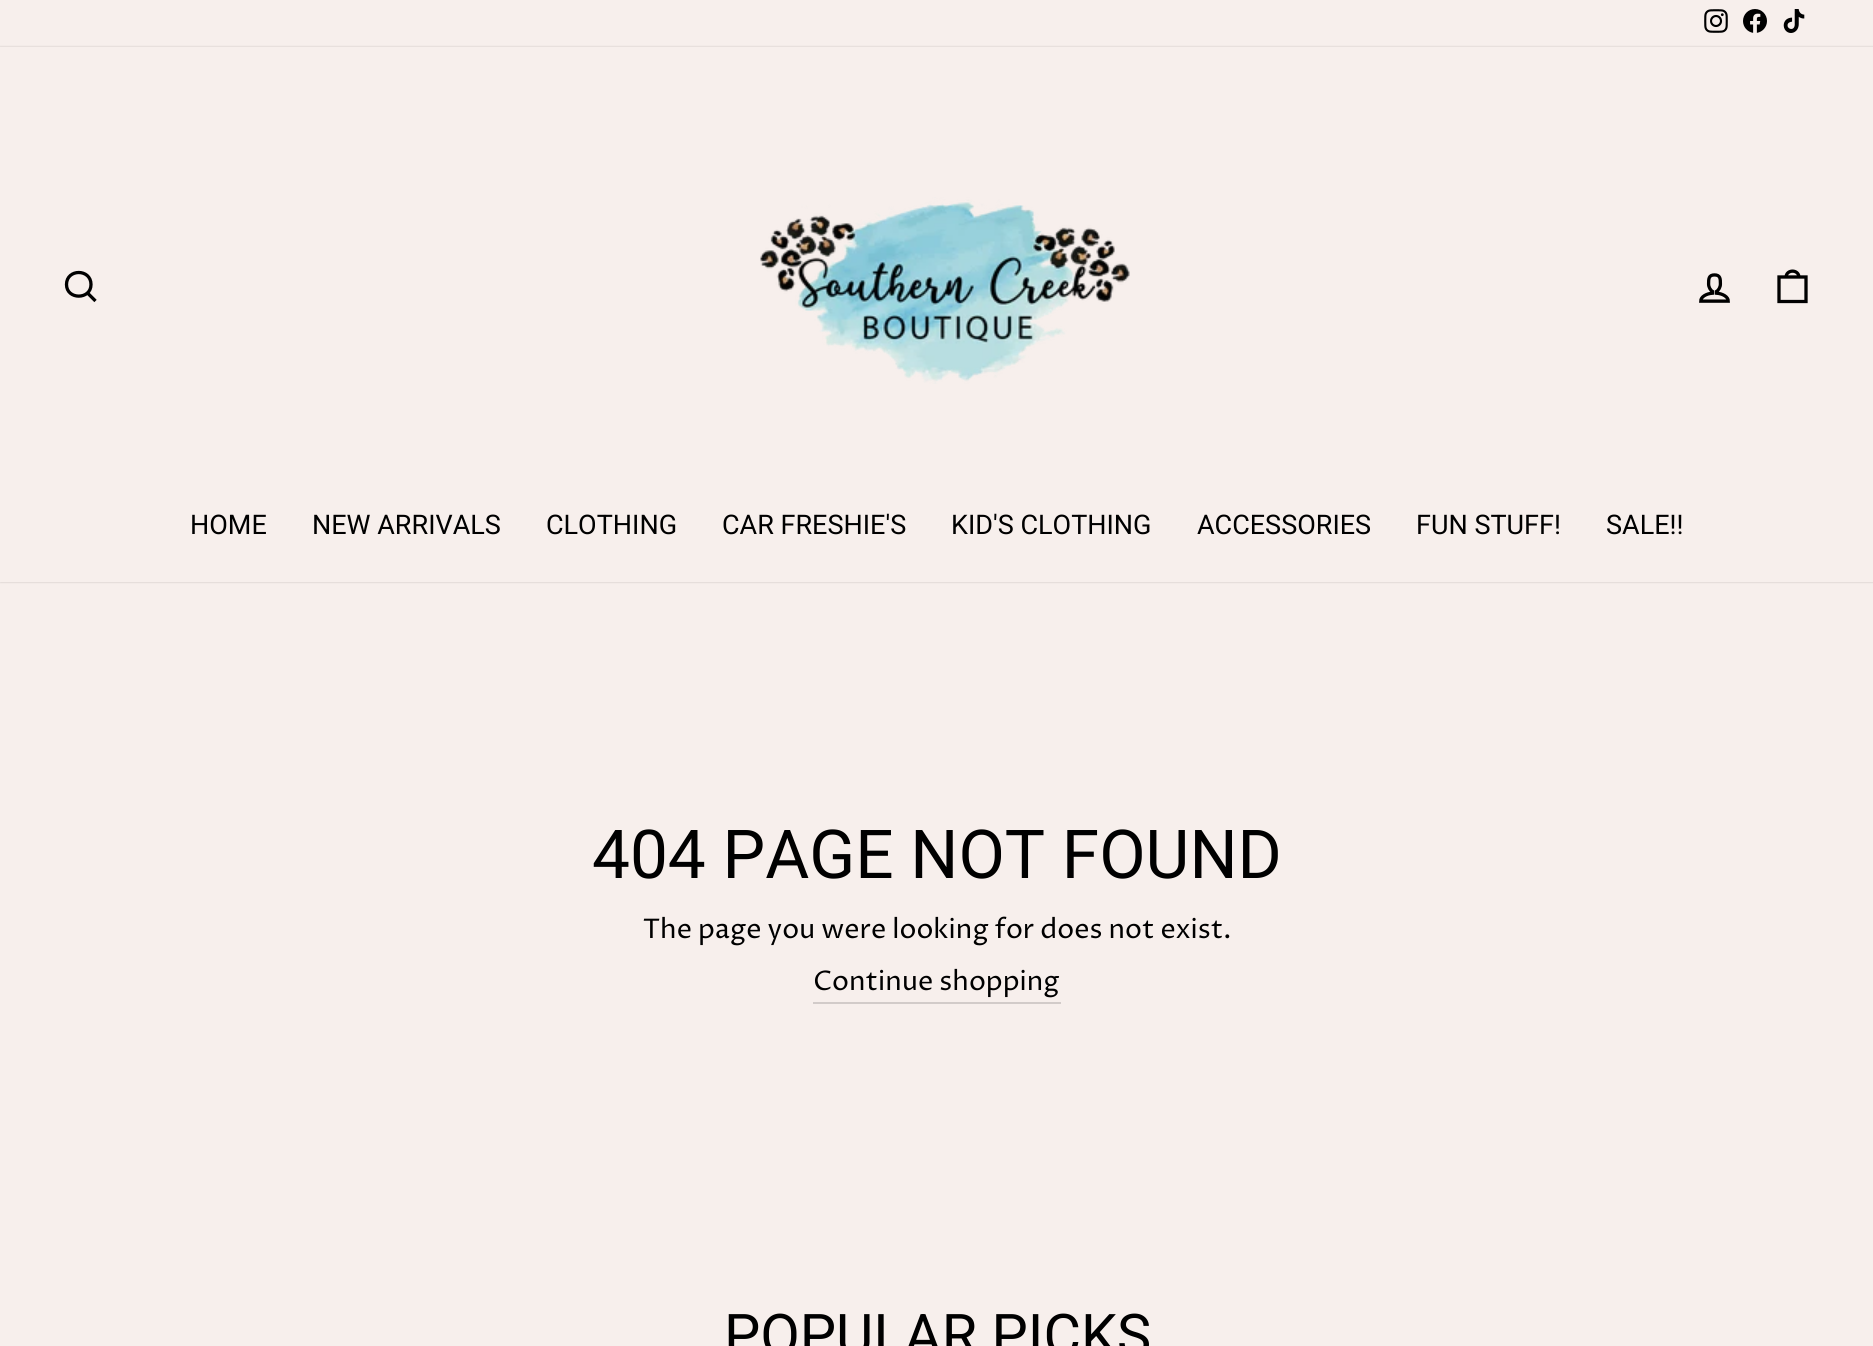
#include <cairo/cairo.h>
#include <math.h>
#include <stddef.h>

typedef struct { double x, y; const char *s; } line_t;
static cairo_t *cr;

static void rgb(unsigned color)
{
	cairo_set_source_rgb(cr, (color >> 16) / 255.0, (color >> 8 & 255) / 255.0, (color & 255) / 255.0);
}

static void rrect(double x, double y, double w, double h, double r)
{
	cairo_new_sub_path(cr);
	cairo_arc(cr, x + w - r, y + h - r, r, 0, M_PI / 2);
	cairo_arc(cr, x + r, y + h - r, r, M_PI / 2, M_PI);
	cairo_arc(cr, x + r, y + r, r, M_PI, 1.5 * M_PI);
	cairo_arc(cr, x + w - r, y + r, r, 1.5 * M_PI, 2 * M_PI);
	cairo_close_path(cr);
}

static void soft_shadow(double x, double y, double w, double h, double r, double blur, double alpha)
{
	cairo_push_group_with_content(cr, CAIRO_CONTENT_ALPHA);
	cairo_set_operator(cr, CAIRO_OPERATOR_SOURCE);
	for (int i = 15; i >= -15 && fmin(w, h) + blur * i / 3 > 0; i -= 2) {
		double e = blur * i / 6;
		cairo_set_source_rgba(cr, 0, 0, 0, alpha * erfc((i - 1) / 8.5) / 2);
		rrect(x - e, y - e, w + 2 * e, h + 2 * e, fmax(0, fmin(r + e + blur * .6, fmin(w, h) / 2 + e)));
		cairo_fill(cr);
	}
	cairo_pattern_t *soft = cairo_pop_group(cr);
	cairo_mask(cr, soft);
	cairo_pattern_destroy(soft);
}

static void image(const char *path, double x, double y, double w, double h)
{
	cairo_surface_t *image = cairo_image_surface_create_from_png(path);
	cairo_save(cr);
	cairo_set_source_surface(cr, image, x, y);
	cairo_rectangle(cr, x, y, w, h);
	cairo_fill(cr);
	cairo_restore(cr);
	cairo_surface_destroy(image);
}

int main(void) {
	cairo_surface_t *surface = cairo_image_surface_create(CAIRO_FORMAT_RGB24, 1873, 1346);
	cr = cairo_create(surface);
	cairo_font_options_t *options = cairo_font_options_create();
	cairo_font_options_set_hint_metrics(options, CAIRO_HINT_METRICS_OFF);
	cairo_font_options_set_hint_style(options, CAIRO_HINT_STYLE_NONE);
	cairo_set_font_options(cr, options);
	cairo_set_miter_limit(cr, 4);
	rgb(0xf7efec);
	cairo_paint(cr);
	image("img/1.png", 1704, 9, 24, 24);
	image("img/2.png", 1743, 9, 24, 24);
	image("img/3.png", 1783, 9, 22, 24);
	cairo_save(cr);
	cairo_set_fill_rule(cr, CAIRO_FILL_RULE_EVEN_ODD);
	cairo_new_path(cr);
	cairo_move_to(cr, 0, 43);
	cairo_line_to(cr, 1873, 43);
	cairo_line_to(cr, 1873, 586);
	cairo_line_to(cr, 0, 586);
	cairo_close_path(cr);
	cairo_move_to(cr, 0, 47);
	cairo_line_to(cr, 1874, 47);
	cairo_line_to(cr, 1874, 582);
	cairo_line_to(cr, 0, 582);
	cairo_close_path(cr);
	cairo_clip(cr);
	rgb(0x000000);
	soft_shadow(0, 47, 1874, 535, 0, 1, 0.2);
	cairo_restore(cr);
	cairo_new_path(cr);
	cairo_move_to(cr, 91, 284.5);
	cairo_curve_to(cr, 91, 300, 66.5, 300, 66.5, 284.5);
	cairo_curve_to(cr, 66.5, 268.5, 91, 268.5, 91, 284.5);
	cairo_close_path(cr);
	cairo_move_to(cr, 95.5, 301);
	cairo_line_to(cr, 87.5, 293);
	rgb(0x000000);
	cairo_set_line_width(cr, 3.3);
	cairo_stroke(cr);
	image("img/4.png", 760, 197, 370, 187);
	image("img/5.png", 1699, 273, 31, 30);
	cairo_new_path(cr);
	cairo_move_to(cr, 1779, 277);
	cairo_line_to(cr, 1806, 277);
	cairo_line_to(cr, 1806, 301.5);
	cairo_line_to(cr, 1779, 301.5);
	cairo_close_path(cr);
	cairo_move_to(cr, 1786, 277.5);
	cairo_curve_to(cr, 1786, 269, 1799, 269, 1799, 277.5);
	cairo_stroke(cr);
	rgb(0xd2cbc9);
	cairo_rectangle(cr, 813, 1002, 248, 2);
	cairo_fill(cr);
	cairo_select_font_face(cr, "Roboto", CAIRO_FONT_SLANT_NORMAL, CAIRO_FONT_WEIGHT_NORMAL);
	cairo_set_font_size(cr, 27);
	rgb(0x000000);
	{
		static const line_t items[] = {
			{190, 534, "HOME"},
			{312, 534, "NEW ARRIVALS"},
			{546, 534, "CLOTHING"},
			{722, 534, "CAR FRESHIE'S"},
			{951, 534, "KID'S CLOTHING"},
			{1197, 534, "ACCESSORIES"},
			{1416, 534, "FUN STUFF!"},
			{1606, 534, "SALE!!"},
		};
		for (size_t i = 0; i < sizeof items / sizeof *items; i++) {
			cairo_move_to(cr, items[i].x, items[i].y);
			cairo_show_text(cr, items[i].s);
		}
	}
	cairo_set_font_size(cr, 67.5);
	cairo_move_to(cr, 592, 878);
	cairo_show_text(cr, "404 PAGE NOT FOUND");
	cairo_select_font_face(cr, "Proza Libre", CAIRO_FONT_SLANT_NORMAL, CAIRO_FONT_WEIGHT_NORMAL);
	cairo_set_font_size(cr, 27);
	cairo_move_to(cr, 643, 938);
	cairo_show_text(cr, "The page you were looking for does not exist.");
	cairo_move_to(cr, 813, 990);
	cairo_show_text(cr, "Continue shopping");
	cairo_select_font_face(cr, "Roboto", CAIRO_FONT_SLANT_NORMAL, CAIRO_FONT_WEIGHT_NORMAL);
	cairo_set_font_size(cr, 57.5);
	cairo_move_to(cr, 724, 1355);
	cairo_show_text(cr, "POPULAR PICKS");
	cairo_surface_write_to_png(surface, "page.png");
	cairo_font_options_destroy(options);
	cairo_destroy(cr);
	cairo_surface_destroy(surface);
	return 0;
}
